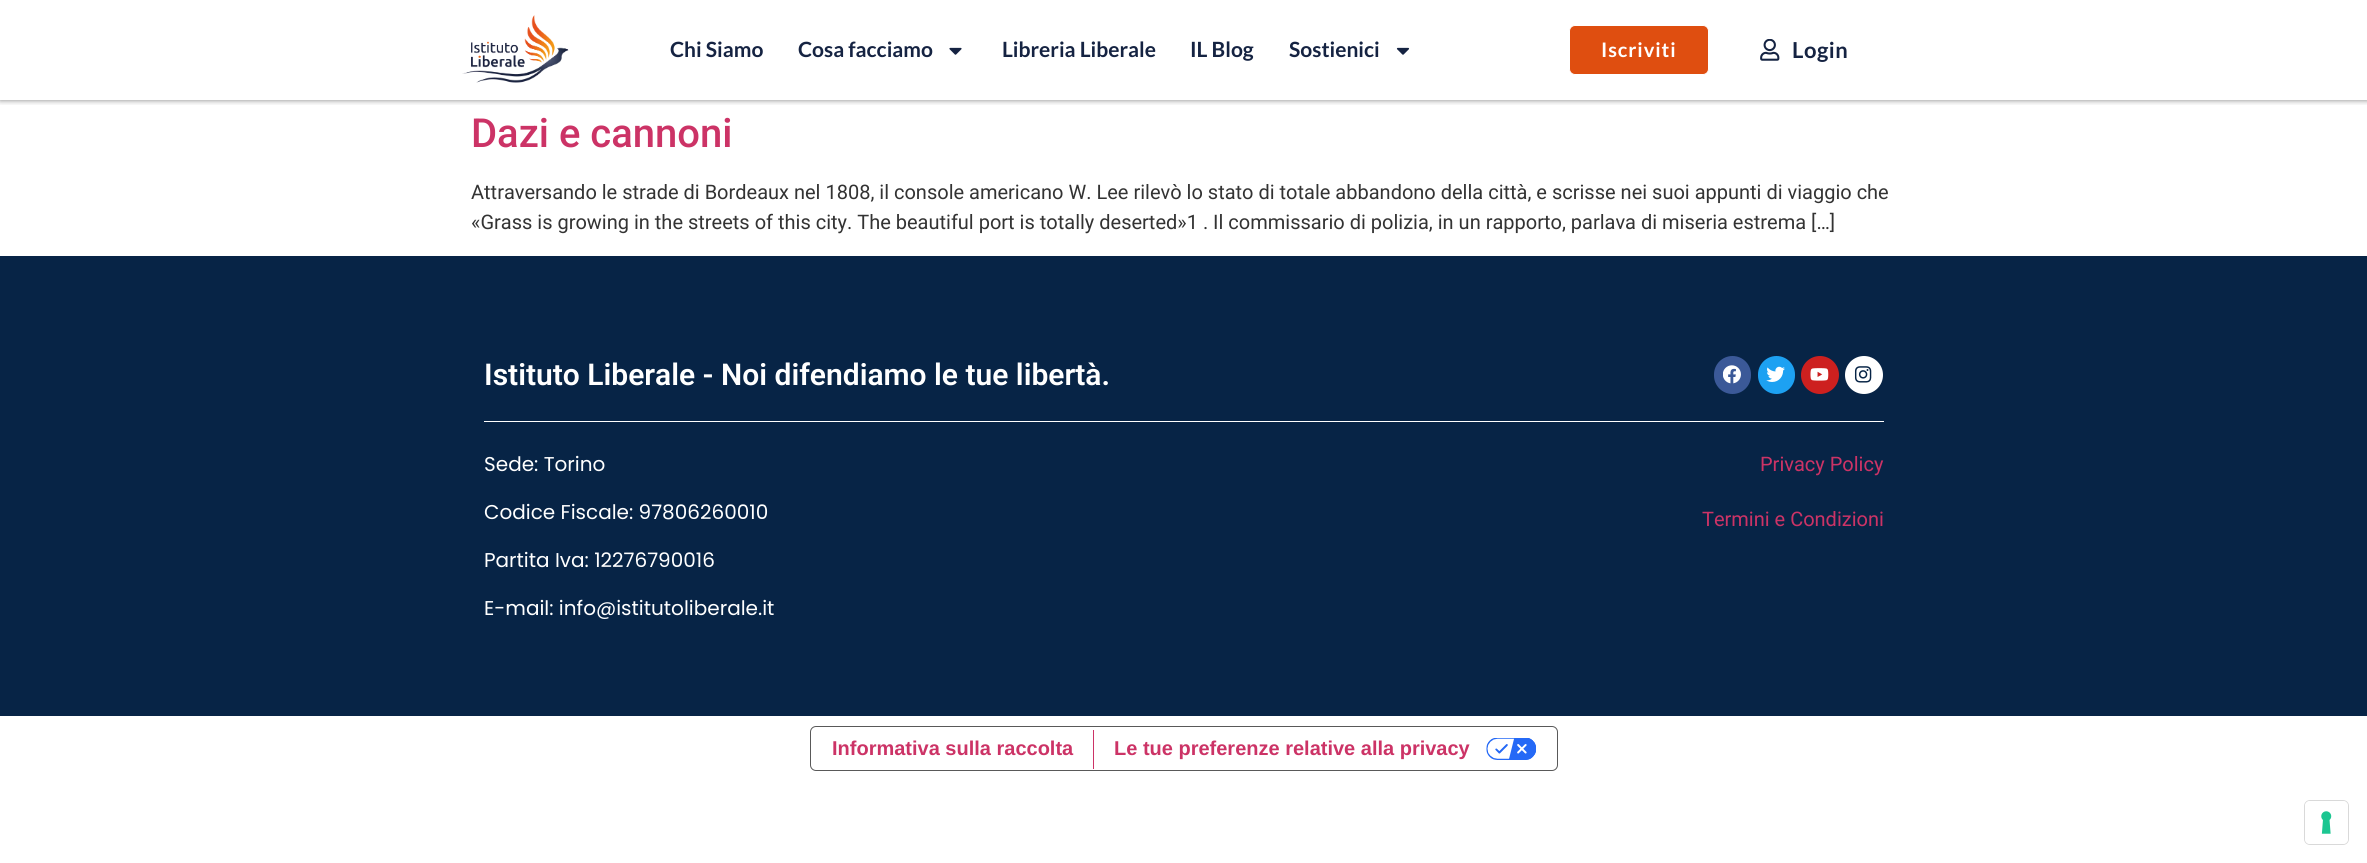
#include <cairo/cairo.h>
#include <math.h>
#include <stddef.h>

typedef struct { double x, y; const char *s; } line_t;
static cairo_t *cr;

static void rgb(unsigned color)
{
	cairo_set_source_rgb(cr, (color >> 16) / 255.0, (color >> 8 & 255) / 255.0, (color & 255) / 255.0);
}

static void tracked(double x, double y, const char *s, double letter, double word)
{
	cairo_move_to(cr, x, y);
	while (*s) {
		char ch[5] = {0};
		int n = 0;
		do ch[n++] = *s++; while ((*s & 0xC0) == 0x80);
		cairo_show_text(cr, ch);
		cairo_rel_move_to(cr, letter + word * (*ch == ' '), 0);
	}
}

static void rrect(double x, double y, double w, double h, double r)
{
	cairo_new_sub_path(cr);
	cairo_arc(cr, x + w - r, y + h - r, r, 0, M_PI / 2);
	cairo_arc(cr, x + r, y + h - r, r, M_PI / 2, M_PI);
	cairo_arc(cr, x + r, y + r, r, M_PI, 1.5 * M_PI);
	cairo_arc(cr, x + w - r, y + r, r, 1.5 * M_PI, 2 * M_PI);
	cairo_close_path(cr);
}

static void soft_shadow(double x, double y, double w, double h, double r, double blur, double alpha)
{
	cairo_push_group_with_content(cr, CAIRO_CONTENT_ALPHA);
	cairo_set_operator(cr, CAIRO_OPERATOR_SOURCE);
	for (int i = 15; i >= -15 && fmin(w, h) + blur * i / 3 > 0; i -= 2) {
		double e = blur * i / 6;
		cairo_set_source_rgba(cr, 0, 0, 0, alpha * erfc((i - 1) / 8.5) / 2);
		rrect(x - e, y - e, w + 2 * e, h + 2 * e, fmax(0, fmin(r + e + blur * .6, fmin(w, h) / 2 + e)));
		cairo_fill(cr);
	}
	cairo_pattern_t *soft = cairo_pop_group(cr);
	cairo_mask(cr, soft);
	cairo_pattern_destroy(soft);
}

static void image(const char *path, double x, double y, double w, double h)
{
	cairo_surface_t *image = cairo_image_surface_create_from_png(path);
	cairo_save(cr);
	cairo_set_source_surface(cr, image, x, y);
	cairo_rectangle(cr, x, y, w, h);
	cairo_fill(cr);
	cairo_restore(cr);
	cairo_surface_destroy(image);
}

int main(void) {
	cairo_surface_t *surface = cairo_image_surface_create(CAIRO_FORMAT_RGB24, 2367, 863);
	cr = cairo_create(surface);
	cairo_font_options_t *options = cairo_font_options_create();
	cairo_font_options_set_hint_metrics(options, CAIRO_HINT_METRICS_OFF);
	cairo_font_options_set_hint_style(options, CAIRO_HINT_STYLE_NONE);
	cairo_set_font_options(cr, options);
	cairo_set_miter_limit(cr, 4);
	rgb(0xffffff);
	cairo_paint(cr);
	cairo_save(cr);
	cairo_rectangle(cr, 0, 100, 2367, 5);
	cairo_clip(cr);
	rgb(0x000000);
	soft_shadow(0, 0, 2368, 100, 0, 3, 0.5);
	cairo_restore(cr);
	image("img/1.png", 462, 15, 107, 68);
	image("img/2.png", 949, 47, 13, 8);
	image("img/3.png", 1396, 47, 14, 8);
	rgb(0xdf4e10);
	rrect(1569.5, 25.5, 139, 49, 5.5);
	cairo_fill_preserve(cr);
	rgb(0xffffff);
	cairo_set_line_width(cr, 1);
	cairo_stroke(cr);
	image("img/4.png", 1760, 39, 20, 22);
	rgb(0x072446);
	cairo_rectangle(cr, 0, 256, 2367, 460);
	cairo_fill(cr);
	rgb(0x3b5998);
	rrect(1714, 356, 37, 38, 18.5);
	cairo_fill(cr);
	image("img/5.png", 1723, 365, 18, 19);
	rgb(0x1da1f2);
	rrect(1758, 356, 37, 38, 18.5);
	cairo_fill(cr);
	image("img/6.png", 1766, 366, 19, 16);
	rgb(0xcd201f);
	cairo_arc(cr, 1820, 375, 19, 0, 2 * M_PI);
	cairo_fill(cr);
	image("img/7.png", 1810, 368, 19, 13);
	rgb(0xffffff);
	cairo_arc(cr, 1864, 375, 19, 0, 2 * M_PI);
	cairo_fill(cr);
	image("img/8.png", 1854, 366, 18, 17);
	cairo_rectangle(cr, 484, 421, 1400, 1);
	cairo_fill(cr);
	rrect(810.5, 726.5, 747, 44, 5.5);
	rgb(0x595959);
	cairo_stroke(cr);
	rgb(0xcc3366);
	cairo_rectangle(cr, 1093, 730, 1, 39);
	cairo_fill(cr);
	image("img/9.png", 1486, 738, 50, 22);
	rrect(2304.5, 800.5, 44, 44, 5.5);
	rgb(0xd9d9d9);
	cairo_stroke(cr);
	rgb(0xffffff);
	rrect(2305, 801, 43, 43, 5);
	cairo_fill(cr);
	image("img/10.png", 2321, 811, 11, 23);
	cairo_select_font_face(cr, "Lato", CAIRO_FONT_SLANT_NORMAL, CAIRO_FONT_WEIGHT_BOLD);
	cairo_set_font_size(cr, 21);
	rgb(0x152342);
	{
		static const line_t items[] = {
			{670, 57, "Chi Siamo"},
			{798, 57, "Cosa facciamo"},
			{1002, 57, "Libreria Liberale"},
			{1190, 57, "IL Blog"},
			{1289, 57, "Sostienici"},
		};
		for (size_t i = 0; i < sizeof items / sizeof *items; i++) {
			cairo_move_to(cr, items[i].x, items[i].y);
			cairo_show_text(cr, items[i].s);
		}
	}
	cairo_set_font_size(cr, 20);
	rgb(0xffffff);
	tracked(1601, 57, "Iscriviti", 0.9, 0);
	cairo_set_font_size(cr, 22);
	rgb(0x152342);
	tracked(1792, 58, "Login", 0.5, 0);
	cairo_select_font_face(cr, "Roboto Medium", CAIRO_FONT_SLANT_NORMAL, CAIRO_FONT_WEIGHT_NORMAL);
	cairo_set_font_size(cr, 40);
	rgb(0xcc3366);
	cairo_move_to(cr, 471, 147);
	cairo_show_text(cr, "Dazi e cannoni");
	cairo_select_font_face(cr, "Roboto", CAIRO_FONT_SLANT_NORMAL, CAIRO_FONT_WEIGHT_NORMAL);
	cairo_set_font_size(cr, 20);
	rgb(0x333333);
	cairo_move_to(cr, 471, 199);
	cairo_show_text(cr, "Attraversando le strade di Bordeaux nel 1808, il console americano W. Lee rilevò lo stato di totale abbandono della città, e scrisse nei suoi appunti di viaggio che");
	cairo_move_to(cr, 471, 229);
	cairo_show_text(cr, "«Grass is growing in the streets of this city. The beautiful port is totally deserted»1 . Il commissario di polizia, in un rapporto, parlava di miseria estrema […]");
	cairo_select_font_face(cr, "Roboto SemiBold", CAIRO_FONT_SLANT_NORMAL, CAIRO_FONT_WEIGHT_NORMAL);
	cairo_set_font_size(cr, 30);
	rgb(0xffffff);
	cairo_move_to(cr, 484, 385);
	cairo_show_text(cr, "Istituto Liberale - Noi difendiamo le tue libertà.");
	cairo_select_font_face(cr, "Poppins", CAIRO_FONT_SLANT_NORMAL, CAIRO_FONT_WEIGHT_NORMAL);
	cairo_set_font_size(cr, 20);
	{
		static const line_t items[] = {
			{484, 471, "Sede: Torino"},
			{484, 519, "Codice Fiscale: 97806260010"},
			{484, 567, "Partita Iva: 12276790016"},
			{484, 615, "E-mail: info@istitutoliberale.it"},
		};
		for (size_t i = 0; i < sizeof items / sizeof *items; i++) {
			cairo_move_to(cr, items[i].x, items[i].y);
			cairo_show_text(cr, items[i].s);
		}
	}
	cairo_select_font_face(cr, "Roboto", CAIRO_FONT_SLANT_NORMAL, CAIRO_FONT_WEIGHT_NORMAL);
	rgb(0xcc3366);
	cairo_move_to(cr, 1760, 471);
	cairo_show_text(cr, "Privacy Policy");
	cairo_move_to(cr, 1702, 526);
	cairo_show_text(cr, "Termini e Condizioni");
	cairo_select_font_face(cr, "Liberation Sans", CAIRO_FONT_SLANT_NORMAL, CAIRO_FONT_WEIGHT_BOLD);
	cairo_move_to(cr, 832, 755);
	cairo_show_text(cr, "Informativa sulla raccolta");
	cairo_move_to(cr, 1114, 755);
	cairo_show_text(cr, "Le tue preferenze relative alla privacy");
	cairo_surface_write_to_png(surface, "page.png");
	cairo_font_options_destroy(options);
	cairo_destroy(cr);
	cairo_surface_destroy(surface);
	return 0;
}
